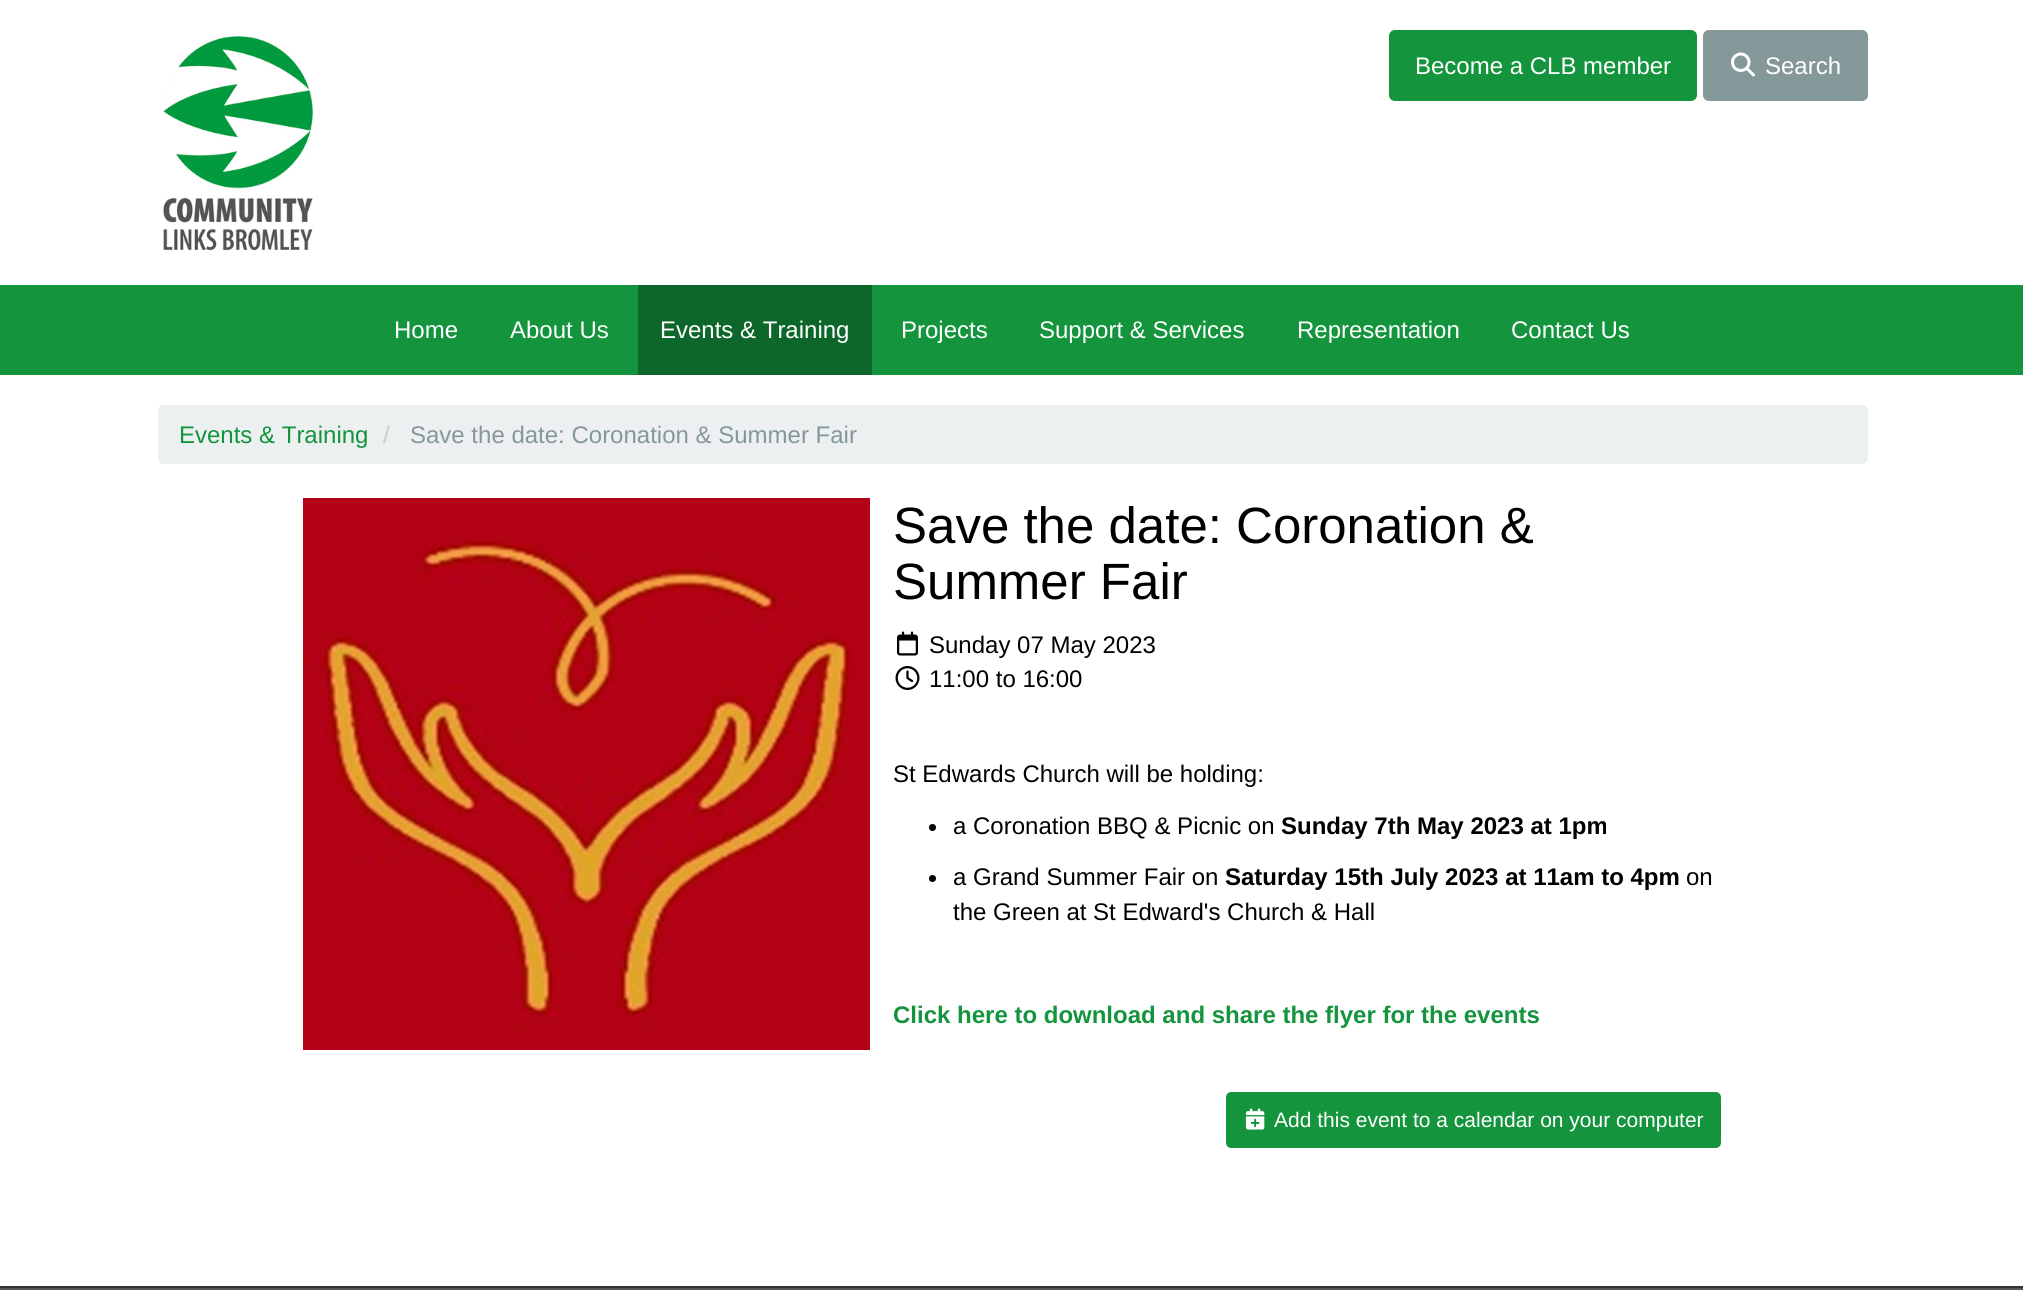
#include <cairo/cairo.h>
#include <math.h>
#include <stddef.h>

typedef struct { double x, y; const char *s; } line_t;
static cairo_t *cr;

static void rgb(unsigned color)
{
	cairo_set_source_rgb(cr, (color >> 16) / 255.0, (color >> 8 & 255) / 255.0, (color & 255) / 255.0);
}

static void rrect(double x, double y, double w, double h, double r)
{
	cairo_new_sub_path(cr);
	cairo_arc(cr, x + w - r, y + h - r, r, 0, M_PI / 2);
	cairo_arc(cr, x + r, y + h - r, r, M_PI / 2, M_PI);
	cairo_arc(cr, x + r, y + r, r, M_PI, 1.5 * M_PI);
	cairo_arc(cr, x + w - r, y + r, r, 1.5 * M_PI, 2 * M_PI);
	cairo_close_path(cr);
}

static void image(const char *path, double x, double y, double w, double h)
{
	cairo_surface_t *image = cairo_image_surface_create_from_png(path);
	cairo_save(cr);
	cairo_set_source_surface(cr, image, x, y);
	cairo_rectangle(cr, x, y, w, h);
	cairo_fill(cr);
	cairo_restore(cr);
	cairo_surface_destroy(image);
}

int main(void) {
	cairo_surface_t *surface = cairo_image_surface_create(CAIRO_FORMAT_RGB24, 2023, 1290);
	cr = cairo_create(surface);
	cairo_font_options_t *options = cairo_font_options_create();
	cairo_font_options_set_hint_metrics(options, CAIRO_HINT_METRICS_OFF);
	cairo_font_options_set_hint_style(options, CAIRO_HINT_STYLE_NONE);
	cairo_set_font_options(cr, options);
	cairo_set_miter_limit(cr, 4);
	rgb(0xffffff);
	cairo_paint(cr);
	image("img/1.png", 163, 36, 150, 215);
	rgb(0x14943c);
	rrect(1390.5, 31.5, 305, 68, 4.5);
	cairo_fill_preserve(cr);
	cairo_set_line_width(cr, 3);
	cairo_stroke(cr);
	rgb(0x859899);
	rrect(1704.5, 31.5, 162, 68, 4.5);
	cairo_fill_preserve(cr);
	cairo_stroke(cr);
	image("img/2.png", 1731, 52, 24, 25);
	rgb(0x14943c);
	cairo_rectangle(cr, 0, 285, 2023, 90);
	cairo_fill(cr);
	rgb(0x0e672a);
	cairo_rectangle(cr, 638, 285, 234, 90);
	cairo_fill(cr);
	rgb(0xecf0f1);
	rrect(158, 405, 1710, 59, 6);
	cairo_fill(cr);
	image("img/3.png", 303, 498, 567, 552);
	image("img/4.png", 897, 631, 21, 25);
	image("img/5.png", 895, 666, 25, 24);
	rgb(0x000000);
	cairo_arc(cr, 932.5, 827.5, 3.5, 0, 2 * M_PI);
	cairo_fill(cr);
	cairo_arc(cr, 932.5, 878.5, 3.5, 0, 2 * M_PI);
	cairo_fill(cr);
	rgb(0x14943c);
	rrect(1227.5, 1093.5, 492, 53, 3.5);
	cairo_fill_preserve(cr);
	cairo_stroke(cr);
	image("img/6.png", 1245, 1108, 20, 22);
	rgb(0x555555);
	cairo_rectangle(cr, 0, 1288, 2023, 2);
	cairo_fill(cr);
	rgb(0x333333);
	cairo_rectangle(cr, 0, 1286, 2023, 2);
	cairo_fill(cr);
	cairo_select_font_face(cr, "Liberation Sans", CAIRO_FONT_SLANT_NORMAL, CAIRO_FONT_WEIGHT_NORMAL);
	cairo_set_font_size(cr, 24);
	rgb(0xffffff);
	{
		static const line_t items[] = {
			{1415, 74, "Become a CLB member"},
			{1765, 74, "Search"},
			{394, 338, "Home"},
			{510, 338, "About Us"},
			{660, 338, "Events & Training"},
			{901, 338, "Projects"},
			{1039, 338, "Support & Services"},
			{1297, 338, "Representation"},
			{1511, 338, "Contact Us"},
		};
		for (size_t i = 0; i < sizeof items / sizeof *items; i++) {
			cairo_move_to(cr, items[i].x, items[i].y);
			cairo_show_text(cr, items[i].s);
		}
	}
	rgb(0x14943c);
	cairo_move_to(cr, 179, 443);
	cairo_show_text(cr, "Events & Training");
	rgb(0xcccccc);
	cairo_move_to(cr, 383, 443);
	cairo_show_text(cr, "/");
	rgb(0x859899);
	cairo_move_to(cr, 410, 443);
	cairo_show_text(cr, "Save the date: Coronation & Summer Fair");
	cairo_set_font_size(cr, 51);
	rgb(0x000000);
	cairo_move_to(cr, 893, 543);
	cairo_show_text(cr, "Save the date: Coronation &");
	cairo_move_to(cr, 893, 599);
	cairo_show_text(cr, "Summer Fair");
	cairo_set_font_size(cr, 24);
	{
		static const line_t items[] = {
			{929, 653, "Sunday 07 May 2023"},
			{929, 687, "11:00 to 16:00"},
			{893, 782, "St Edwards Church will be holding:"},
			{953, 834, "a Coronation BBQ & Picnic on"},
		};
		for (size_t i = 0; i < sizeof items / sizeof *items; i++) {
			cairo_move_to(cr, items[i].x, items[i].y);
			cairo_show_text(cr, items[i].s);
		}
	}
	cairo_select_font_face(cr, "Liberation Sans", CAIRO_FONT_SLANT_NORMAL, CAIRO_FONT_WEIGHT_BOLD);
	cairo_move_to(cr, 1281, 834);
	cairo_show_text(cr, "Sunday 7th May 2023 at 1pm");
	cairo_select_font_face(cr, "Liberation Sans", CAIRO_FONT_SLANT_NORMAL, CAIRO_FONT_WEIGHT_NORMAL);
	cairo_move_to(cr, 953, 885);
	cairo_show_text(cr, "a Grand Summer Fair on");
	cairo_select_font_face(cr, "Liberation Sans", CAIRO_FONT_SLANT_NORMAL, CAIRO_FONT_WEIGHT_BOLD);
	cairo_move_to(cr, 1225, 885);
	cairo_show_text(cr, "Saturday 15th July 2023 at 11am to 4pm");
	cairo_select_font_face(cr, "Liberation Sans", CAIRO_FONT_SLANT_NORMAL, CAIRO_FONT_WEIGHT_NORMAL);
	cairo_move_to(cr, 1686, 885);
	cairo_show_text(cr, "on");
	cairo_move_to(cr, 953, 920);
	cairo_show_text(cr, "the Green at St Edward's Church & Hall");
	cairo_select_font_face(cr, "Liberation Sans", CAIRO_FONT_SLANT_NORMAL, CAIRO_FONT_WEIGHT_BOLD);
	rgb(0x14943c);
	cairo_move_to(cr, 893, 1023);
	cairo_show_text(cr, "Click here to download and share the flyer for the events");
	cairo_select_font_face(cr, "Liberation Sans", CAIRO_FONT_SLANT_NORMAL, CAIRO_FONT_WEIGHT_NORMAL);
	cairo_set_font_size(cr, 21);
	rgb(0xffffff);
	cairo_move_to(cr, 1274, 1127);
	cairo_show_text(cr, "Add this event to a calendar on your computer");
	cairo_surface_write_to_png(surface, "page.png");
	cairo_font_options_destroy(options);
	cairo_destroy(cr);
	cairo_surface_destroy(surface);
	return 0;
}
